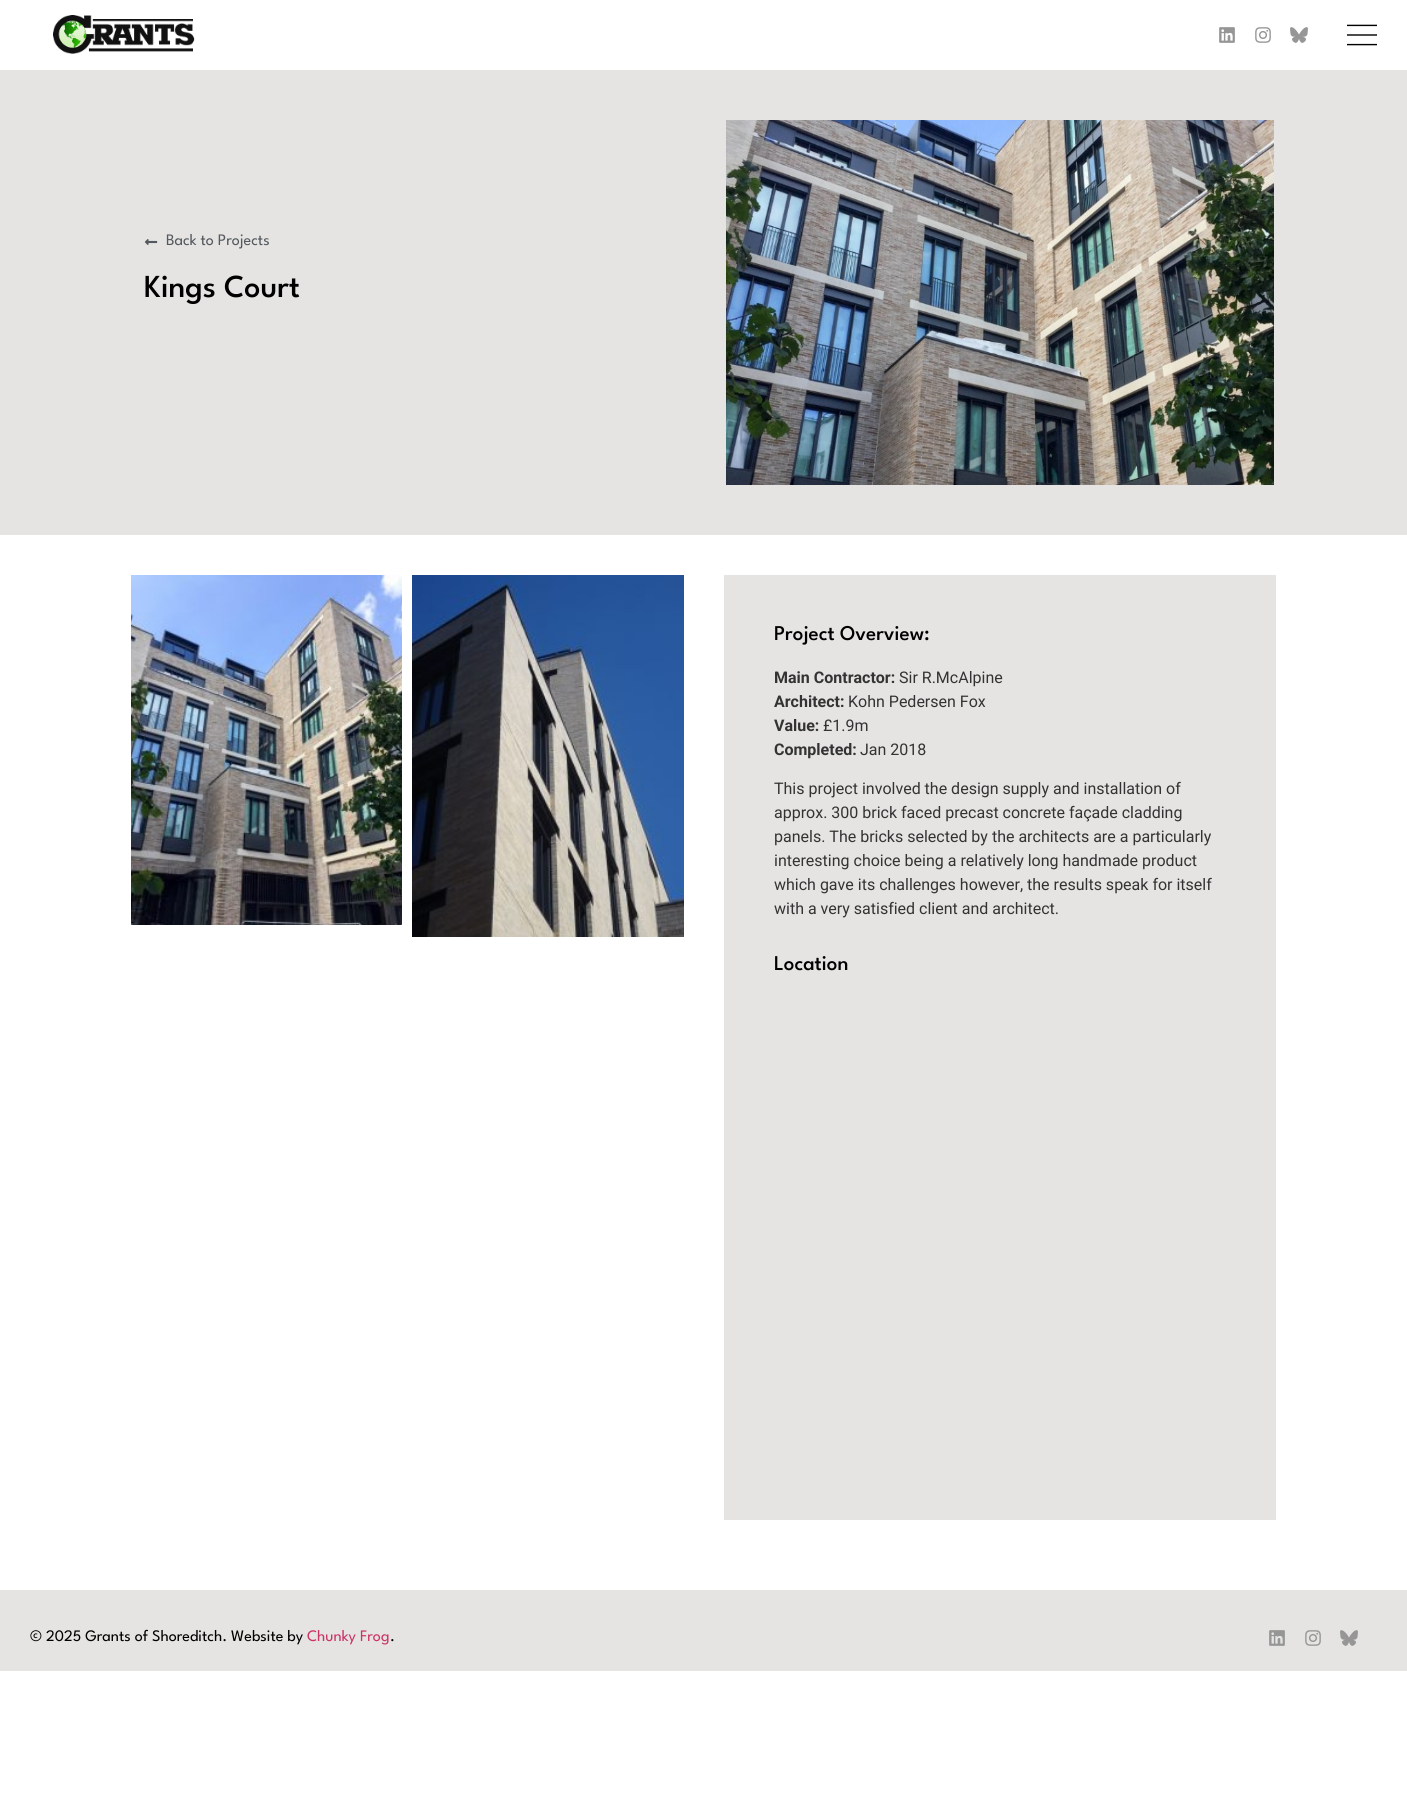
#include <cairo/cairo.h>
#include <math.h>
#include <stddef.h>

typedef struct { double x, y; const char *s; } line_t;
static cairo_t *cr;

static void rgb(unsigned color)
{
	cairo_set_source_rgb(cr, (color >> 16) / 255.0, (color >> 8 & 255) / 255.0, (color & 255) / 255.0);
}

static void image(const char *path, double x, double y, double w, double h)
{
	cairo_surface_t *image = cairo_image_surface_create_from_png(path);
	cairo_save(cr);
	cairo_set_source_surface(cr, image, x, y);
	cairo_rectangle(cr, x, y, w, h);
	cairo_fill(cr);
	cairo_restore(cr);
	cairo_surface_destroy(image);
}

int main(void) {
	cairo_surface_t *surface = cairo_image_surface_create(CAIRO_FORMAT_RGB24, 1407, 1793);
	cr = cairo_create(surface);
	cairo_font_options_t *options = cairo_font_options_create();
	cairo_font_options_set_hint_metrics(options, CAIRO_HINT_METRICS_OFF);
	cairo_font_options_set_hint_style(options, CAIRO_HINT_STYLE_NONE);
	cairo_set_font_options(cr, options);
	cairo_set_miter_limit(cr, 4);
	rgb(0xffffff);
	cairo_paint(cr);
	image("img/1.png", 53, 15, 142, 39);
	image("img/2.png", 1219, 27, 16, 16);
	image("img/3.png", 1255, 27, 16, 16);
	image("img/4.png", 1290, 27, 18, 16);
	image("img/5.png", 1347, 24, 30, 22);
	rgb(0xe5e4e2);
	cairo_rectangle(cr, 0, 70, 1407, 465);
	cairo_fill(cr);
	image("img/6.png", 145, 239, 13, 6);
	image("img/7.png", 726, 120, 548, 365);
	image("img/8.png", 131, 575, 271, 350);
	image("img/9.png", 412, 575, 272, 362);
	cairo_rectangle(cr, 724, 575, 552, 945);
	cairo_fill(cr);
	cairo_rectangle(cr, 0, 1590, 1407, 81);
	cairo_fill(cr);
	image("img/10.png", 1269, 1630, 16, 16);
	image("img/11.png", 1305, 1630, 16, 16);
	image("img/12.png", 1340, 1630, 18, 16);
	cairo_select_font_face(cr, "League Spartan", CAIRO_FONT_SLANT_NORMAL, CAIRO_FONT_WEIGHT_NORMAL);
	cairo_set_font_size(cr, 16);
	rgb(0x54595f);
	cairo_move_to(cr, 166, 245);
	cairo_show_text(cr, "Back to Projects");
	cairo_select_font_face(cr, "League Spartan Medium", CAIRO_FONT_SLANT_NORMAL, CAIRO_FONT_WEIGHT_NORMAL);
	cairo_set_font_size(cr, 32);
	rgb(0x000000);
	cairo_move_to(cr, 144, 297);
	cairo_show_text(cr, "Kings Court");
	cairo_set_font_size(cr, 21);
	cairo_move_to(cr, 774, 640);
	cairo_show_text(cr, "Project Overview:");
	cairo_select_font_face(cr, "Roboto", CAIRO_FONT_SLANT_NORMAL, CAIRO_FONT_WEIGHT_BOLD);
	cairo_set_font_size(cr, 16);
	rgb(0x333333);
	cairo_move_to(cr, 774, 683);
	cairo_show_text(cr, "Main Contractor:");
	cairo_select_font_face(cr, "Roboto", CAIRO_FONT_SLANT_NORMAL, CAIRO_FONT_WEIGHT_NORMAL);
	cairo_move_to(cr, 899, 683);
	cairo_show_text(cr, "Sir R.McAlpine");
	cairo_select_font_face(cr, "Roboto", CAIRO_FONT_SLANT_NORMAL, CAIRO_FONT_WEIGHT_BOLD);
	cairo_move_to(cr, 774, 707);
	cairo_show_text(cr, "Architect:");
	cairo_select_font_face(cr, "Roboto", CAIRO_FONT_SLANT_NORMAL, CAIRO_FONT_WEIGHT_NORMAL);
	cairo_move_to(cr, 848, 707);
	cairo_show_text(cr, "Kohn Pedersen Fox");
	cairo_select_font_face(cr, "Roboto", CAIRO_FONT_SLANT_NORMAL, CAIRO_FONT_WEIGHT_BOLD);
	cairo_move_to(cr, 774, 731);
	cairo_show_text(cr, "Value:");
	cairo_select_font_face(cr, "Roboto", CAIRO_FONT_SLANT_NORMAL, CAIRO_FONT_WEIGHT_NORMAL);
	cairo_move_to(cr, 823, 731);
	cairo_show_text(cr, "£1.9m");
	cairo_select_font_face(cr, "Roboto", CAIRO_FONT_SLANT_NORMAL, CAIRO_FONT_WEIGHT_BOLD);
	cairo_move_to(cr, 774, 755);
	cairo_show_text(cr, "Completed:");
	cairo_select_font_face(cr, "Roboto", CAIRO_FONT_SLANT_NORMAL, CAIRO_FONT_WEIGHT_NORMAL);
	{
		static const line_t items[] = {
			{860, 755, "Jan 2018"},
			{774, 794, "This project involved the design supply and installation of"},
			{774, 818, "approx. 300 brick faced precast concrete façade cladding"},
			{774, 842, "panels. The bricks selected by the architects are a particularly"},
			{774, 866, "interesting choice being a relatively long handmade product"},
			{774, 890, "which gave its challenges however, the results speak for itself"},
			{774, 914, "with a very satisfied client and architect."},
		};
		for (size_t i = 0; i < sizeof items / sizeof *items; i++) {
			cairo_move_to(cr, items[i].x, items[i].y);
			cairo_show_text(cr, items[i].s);
		}
	}
	cairo_select_font_face(cr, "League Spartan Medium", CAIRO_FONT_SLANT_NORMAL, CAIRO_FONT_WEIGHT_NORMAL);
	cairo_set_font_size(cr, 21);
	rgb(0x000000);
	cairo_move_to(cr, 774, 970);
	cairo_show_text(cr, "Location");
	cairo_select_font_face(cr, "League Spartan", CAIRO_FONT_SLANT_NORMAL, CAIRO_FONT_WEIGHT_NORMAL);
	cairo_set_font_size(cr, 16);
	cairo_move_to(cr, 30, 1641);
	cairo_show_text(cr, "© 2025 Grants of Shoreditch. Website by");
	rgb(0xcc3366);
	cairo_move_to(cr, 307, 1641);
	cairo_show_text(cr, "Chunky Frog");
	rgb(0x000000);
	cairo_move_to(cr, 390, 1641);
	cairo_show_text(cr, ".");
	cairo_surface_write_to_png(surface, "page.png");
	cairo_font_options_destroy(options);
	cairo_destroy(cr);
	cairo_surface_destroy(surface);
	return 0;
}
